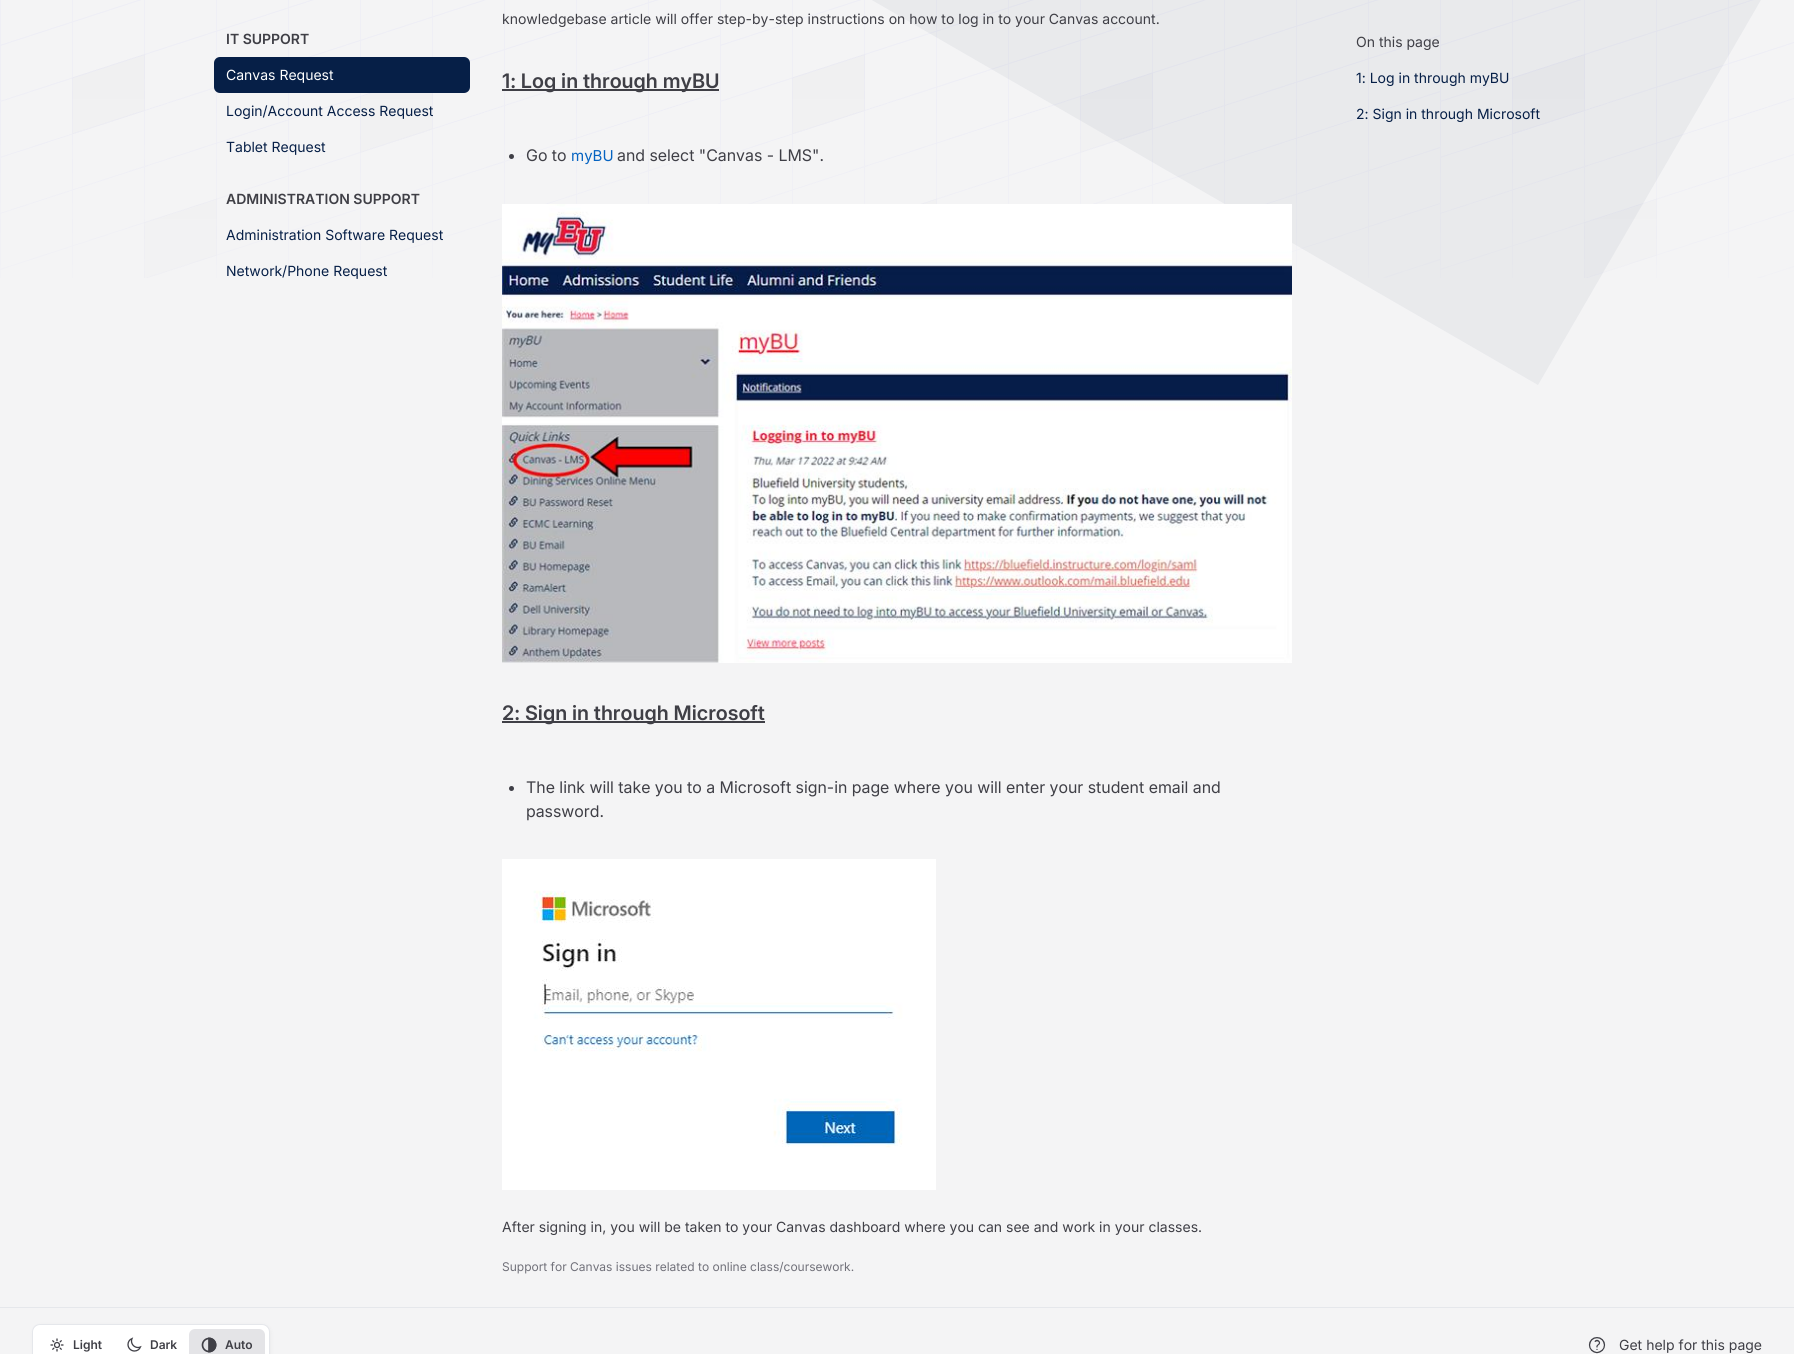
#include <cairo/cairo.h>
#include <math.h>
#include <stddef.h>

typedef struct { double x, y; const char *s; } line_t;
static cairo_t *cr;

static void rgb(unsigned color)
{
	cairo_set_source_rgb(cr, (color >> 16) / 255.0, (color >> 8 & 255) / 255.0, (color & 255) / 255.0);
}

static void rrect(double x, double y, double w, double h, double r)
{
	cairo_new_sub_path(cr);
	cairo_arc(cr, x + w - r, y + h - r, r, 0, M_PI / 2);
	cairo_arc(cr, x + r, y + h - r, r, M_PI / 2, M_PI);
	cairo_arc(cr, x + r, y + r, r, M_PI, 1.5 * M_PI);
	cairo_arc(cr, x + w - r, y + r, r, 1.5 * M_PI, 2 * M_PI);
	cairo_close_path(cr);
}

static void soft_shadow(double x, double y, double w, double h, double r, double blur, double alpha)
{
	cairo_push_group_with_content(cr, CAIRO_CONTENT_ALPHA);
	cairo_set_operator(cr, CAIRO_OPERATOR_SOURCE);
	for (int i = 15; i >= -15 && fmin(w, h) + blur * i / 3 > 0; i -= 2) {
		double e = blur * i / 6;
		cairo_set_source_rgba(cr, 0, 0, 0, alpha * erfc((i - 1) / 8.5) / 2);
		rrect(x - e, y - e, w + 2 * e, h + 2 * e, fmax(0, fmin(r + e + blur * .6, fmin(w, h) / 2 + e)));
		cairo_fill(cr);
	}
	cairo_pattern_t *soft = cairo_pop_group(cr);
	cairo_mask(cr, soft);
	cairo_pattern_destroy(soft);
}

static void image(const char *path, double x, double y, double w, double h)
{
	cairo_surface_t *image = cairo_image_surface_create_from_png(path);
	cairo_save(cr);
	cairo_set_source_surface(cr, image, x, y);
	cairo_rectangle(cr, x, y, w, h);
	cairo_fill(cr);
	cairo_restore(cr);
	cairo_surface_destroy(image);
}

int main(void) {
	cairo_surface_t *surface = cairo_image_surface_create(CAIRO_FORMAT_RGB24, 1794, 1354);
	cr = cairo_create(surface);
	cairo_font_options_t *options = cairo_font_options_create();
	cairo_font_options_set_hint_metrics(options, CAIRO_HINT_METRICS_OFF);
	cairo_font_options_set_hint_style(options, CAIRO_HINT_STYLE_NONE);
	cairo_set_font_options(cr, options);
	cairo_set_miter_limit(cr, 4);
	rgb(0xf4f4f5);
	cairo_paint(cr);
	image("img/1.png", 0, 0, 1794, 278);
	cairo_set_source_rgba(cr, 0.024, 0.122, 0.278, 0.05);
	cairo_new_path(cr);
	cairo_move_to(cr, 1025, -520);
	cairo_line_to(cr, 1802, -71);
	cairo_line_to(cr, 1538, 385);
	cairo_line_to(cr, 761, -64);
	cairo_close_path(cr);
	cairo_fill(cr);
	rgb(0x061f47);
	rrect(214, 57, 256, 36, 6);
	cairo_fill(cr);
	rgb(0x3f3f46);
	cairo_rectangle(cr, 502, 89, 217, 2);
	cairo_fill(cr);
	cairo_arc(cr, 511.5, 156.5, 2.5, 0, 2 * M_PI);
	cairo_fill(cr);
	image("img/2.png", 502, 204, 790, 459);
	cairo_rectangle(cr, 502, 721, 263, 2);
	cairo_fill(cr);
	cairo_arc(cr, 511.5, 788.5, 2.5, 0, 2 * M_PI);
	cairo_fill(cr);
	image("img/3.png", 502, 859, 434, 331);
	rgb(0xe5e7eb);
	cairo_rectangle(cr, 0, 1307, 1794, 1);
	cairo_fill(cr);
	rgb(0x000000);
	soft_shadow(34, 1326, 236, 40, 7, 2.5, 0.06);
	rgb(0xffffff);
	rrect(32.5, 1324.5, 237, 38, 7.5);
	cairo_fill_preserve(cr);
	rgb(0xe5e7eb);
	cairo_set_line_width(cr, 1);
	cairo_stroke(cr);
	image("img/4.png", 50, 1338, 14, 14);
	image("img/5.png", 127, 1337, 15, 15);
	rgb(0xe4e4e7);
	rrect(189, 1329, 76, 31, 6);
	cairo_fill(cr);
	image("img/6.png", 201, 1337, 16, 16);
	image("img/7.png", 1588, 1337, 18, 17);
	cairo_select_font_face(cr, "Inter SemiBold", CAIRO_FONT_SLANT_NORMAL, CAIRO_FONT_WEIGHT_NORMAL);
	cairo_set_font_size(cr, 14);
	rgb(0x3f3f46);
	cairo_move_to(cr, 226, 44);
	cairo_show_text(cr, "IT SUPPORT");
	cairo_select_font_face(cr, "Inter", CAIRO_FONT_SLANT_NORMAL, CAIRO_FONT_WEIGHT_NORMAL);
	rgb(0xffffff);
	cairo_move_to(cr, 226, 80);
	cairo_show_text(cr, "Canvas Request");
	rgb(0x061f47);
	cairo_move_to(cr, 226, 116);
	cairo_show_text(cr, "Login/Account Access Request");
	cairo_move_to(cr, 226, 152);
	cairo_show_text(cr, "Tablet Request");
	cairo_select_font_face(cr, "Inter SemiBold", CAIRO_FONT_SLANT_NORMAL, CAIRO_FONT_WEIGHT_NORMAL);
	rgb(0x3f3f46);
	cairo_move_to(cr, 226, 204);
	cairo_show_text(cr, "ADMINISTRATION SUPPORT");
	cairo_select_font_face(cr, "Inter", CAIRO_FONT_SLANT_NORMAL, CAIRO_FONT_WEIGHT_NORMAL);
	rgb(0x061f47);
	cairo_move_to(cr, 226, 240);
	cairo_show_text(cr, "Administration Software Request");
	cairo_move_to(cr, 226, 276);
	cairo_show_text(cr, "Network/Phone Request");
	rgb(0x3f3f46);
	cairo_move_to(cr, 502, 24);
	cairo_show_text(cr, "knowledgebase article will offer step-by-step instructions on how to log in to your Canvas account.");
	cairo_select_font_face(cr, "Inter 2 SemiBold", CAIRO_FONT_SLANT_NORMAL, CAIRO_FONT_WEIGHT_NORMAL);
	cairo_set_font_size(cr, 20);
	cairo_move_to(cr, 502, 88);
	cairo_show_text(cr, "1: Log in through myBU");
	cairo_select_font_face(cr, "Inter 2", CAIRO_FONT_SLANT_NORMAL, CAIRO_FONT_WEIGHT_NORMAL);
	cairo_set_font_size(cr, 16);
	cairo_move_to(cr, 526, 161);
	cairo_show_text(cr, "Go to");
	cairo_select_font_face(cr, "Inter", CAIRO_FONT_SLANT_NORMAL, CAIRO_FONT_WEIGHT_NORMAL);
	cairo_set_font_size(cr, 15);
	rgb(0x0563c1);
	cairo_move_to(cr, 571, 161);
	cairo_show_text(cr, "myBU");
	cairo_select_font_face(cr, "Inter 2", CAIRO_FONT_SLANT_NORMAL, CAIRO_FONT_WEIGHT_NORMAL);
	cairo_set_font_size(cr, 16);
	rgb(0x3f3f46);
	cairo_move_to(cr, 617, 161);
	cairo_show_text(cr, "and select \"Canvas - LMS\".");
	cairo_select_font_face(cr, "Inter 2 SemiBold", CAIRO_FONT_SLANT_NORMAL, CAIRO_FONT_WEIGHT_NORMAL);
	cairo_set_font_size(cr, 20);
	cairo_move_to(cr, 502, 720);
	cairo_show_text(cr, "2: Sign in through Microsoft");
	cairo_select_font_face(cr, "Inter 2", CAIRO_FONT_SLANT_NORMAL, CAIRO_FONT_WEIGHT_NORMAL);
	cairo_set_font_size(cr, 16);
	cairo_move_to(cr, 526, 793);
	cairo_show_text(cr, "The link will take you to a Microsoft sign-in page where you will enter your student email and");
	cairo_move_to(cr, 526, 817);
	cairo_show_text(cr, "password.");
	cairo_select_font_face(cr, "Inter", CAIRO_FONT_SLANT_NORMAL, CAIRO_FONT_WEIGHT_NORMAL);
	cairo_set_font_size(cr, 14);
	cairo_move_to(cr, 502, 1232);
	cairo_show_text(cr, "After signing in, you will be taken to your Canvas dashboard where you can see and work in your classes.");
	cairo_set_font_size(cr, 12);
	rgb(0x71717a);
	cairo_move_to(cr, 502, 1271);
	cairo_show_text(cr, "Support for Canvas issues related to online class/coursework.");
	cairo_set_font_size(cr, 14);
	rgb(0x3f3f46);
	cairo_move_to(cr, 1356, 47);
	cairo_show_text(cr, "On this page");
	rgb(0x061f47);
	cairo_move_to(cr, 1356, 83);
	cairo_show_text(cr, "1: Log in through myBU");
	cairo_move_to(cr, 1356, 119);
	cairo_show_text(cr, "2: Sign in through Microsoft");
	cairo_select_font_face(cr, "Inter SemiBold", CAIRO_FONT_SLANT_NORMAL, CAIRO_FONT_WEIGHT_NORMAL);
	cairo_set_font_size(cr, 12);
	rgb(0x3f3f46);
	{
		static const line_t items[] = {
			{73, 1349, "Light"},
			{150, 1349, "Dark"},
			{225, 1349, "Auto"},
		};
		for (size_t i = 0; i < sizeof items / sizeof *items; i++) {
			cairo_move_to(cr, items[i].x, items[i].y);
			cairo_show_text(cr, items[i].s);
		}
	}
	cairo_select_font_face(cr, "Inter", CAIRO_FONT_SLANT_NORMAL, CAIRO_FONT_WEIGHT_NORMAL);
	cairo_set_font_size(cr, 14);
	cairo_move_to(cr, 1619, 1350);
	cairo_show_text(cr, "Get help for this page");
	cairo_surface_write_to_png(surface, "page.png");
	cairo_font_options_destroy(options);
	cairo_destroy(cr);
	cairo_surface_destroy(surface);
	return 0;
}
